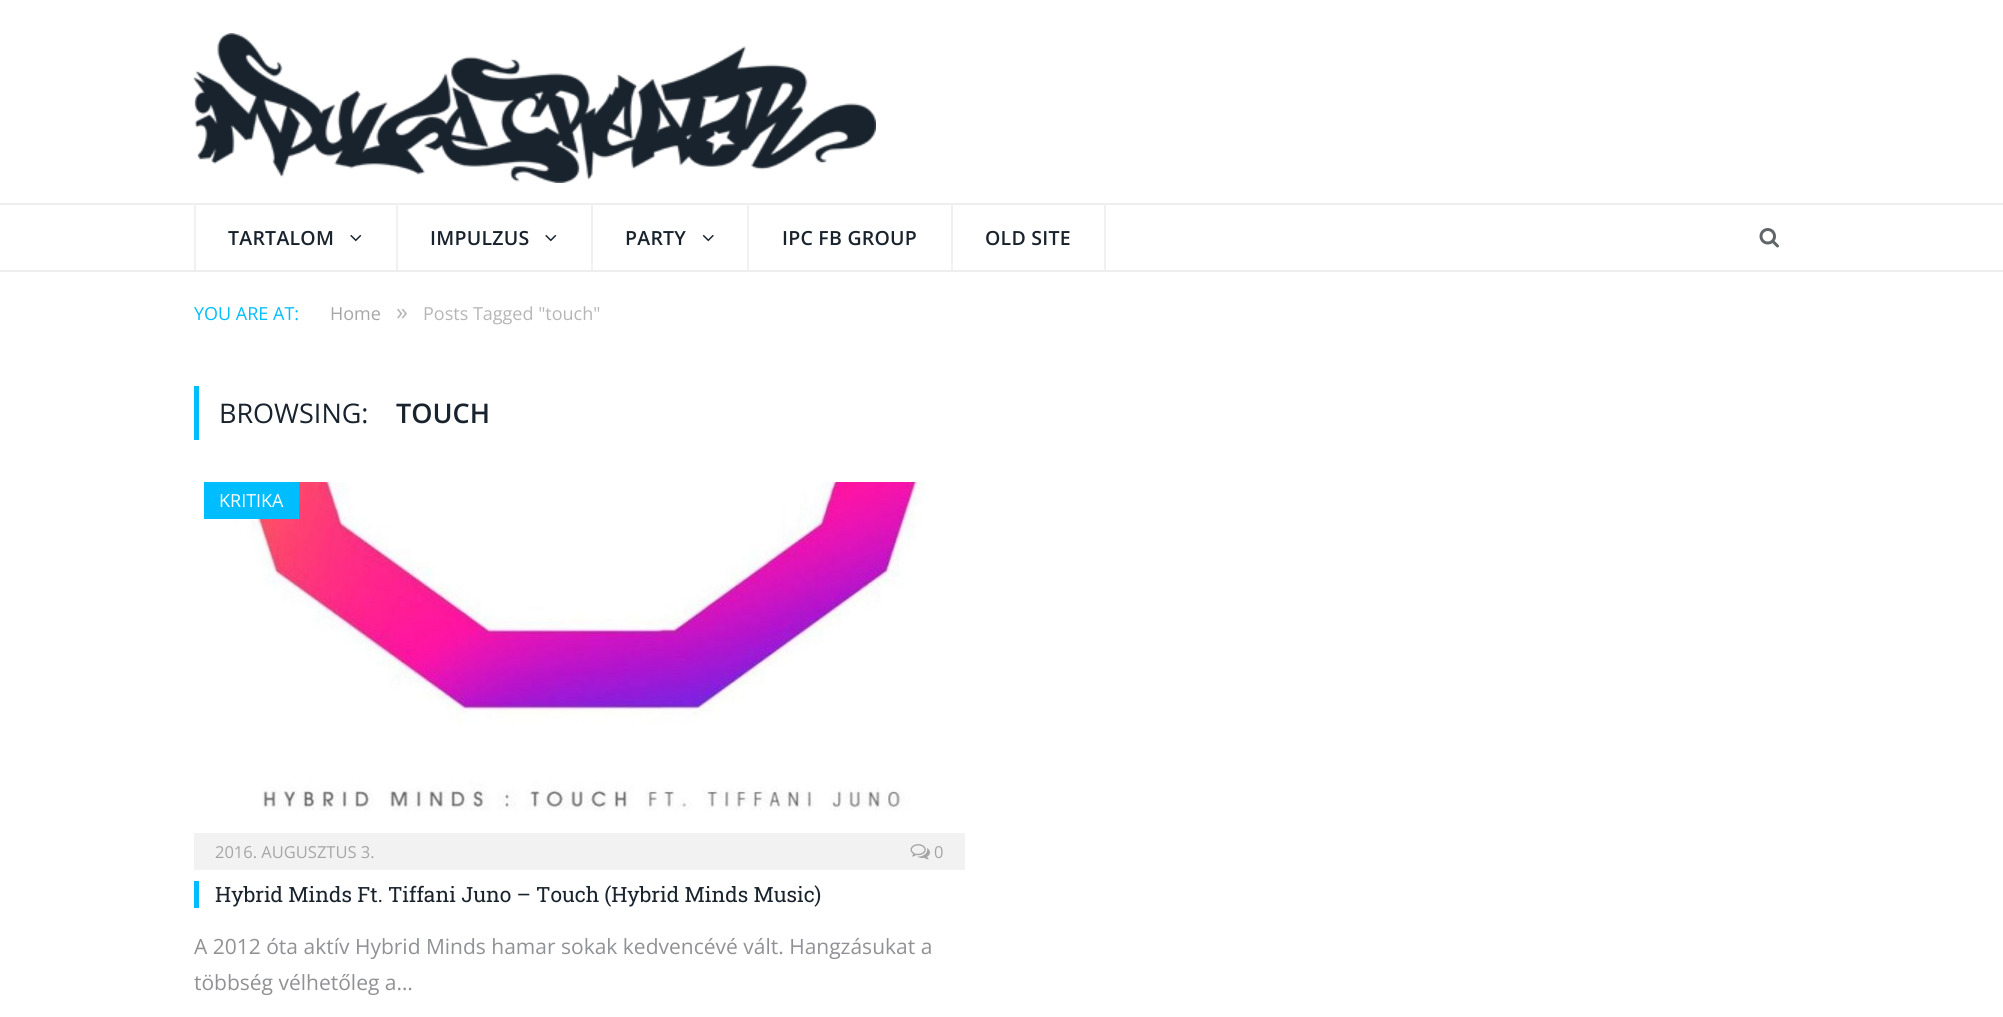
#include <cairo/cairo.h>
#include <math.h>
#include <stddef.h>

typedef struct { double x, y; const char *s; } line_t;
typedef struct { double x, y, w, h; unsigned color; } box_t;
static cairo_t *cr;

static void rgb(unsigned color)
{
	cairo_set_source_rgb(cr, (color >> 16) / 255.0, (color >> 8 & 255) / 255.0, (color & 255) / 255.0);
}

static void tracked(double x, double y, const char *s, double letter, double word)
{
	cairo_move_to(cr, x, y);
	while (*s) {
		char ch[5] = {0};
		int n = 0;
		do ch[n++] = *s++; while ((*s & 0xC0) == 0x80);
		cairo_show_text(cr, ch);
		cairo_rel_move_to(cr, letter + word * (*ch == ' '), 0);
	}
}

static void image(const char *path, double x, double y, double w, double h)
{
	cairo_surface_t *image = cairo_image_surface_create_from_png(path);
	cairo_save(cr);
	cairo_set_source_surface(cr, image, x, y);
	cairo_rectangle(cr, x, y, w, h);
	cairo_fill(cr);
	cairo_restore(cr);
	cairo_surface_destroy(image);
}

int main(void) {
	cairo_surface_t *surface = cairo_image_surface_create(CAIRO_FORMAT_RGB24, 2003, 1017);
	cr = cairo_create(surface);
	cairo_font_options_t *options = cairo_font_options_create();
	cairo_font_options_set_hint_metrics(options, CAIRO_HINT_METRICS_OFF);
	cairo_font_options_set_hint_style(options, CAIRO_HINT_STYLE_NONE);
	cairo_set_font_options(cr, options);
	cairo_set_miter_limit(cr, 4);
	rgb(0xffffff);
	cairo_paint(cr);
	image("img/1.png", 193, 33, 683, 150);
	{
		static const box_t items[] = {
			{0, 203, 2003, 2, 0xeeeeee},
			{0, 270, 2003, 2, 0xeeeeee},
			{396, 204, 2, 66, 0xf1f1f1},
			{194, 204, 2, 66, 0xf1f1f1},
		};
		for (size_t i = 0; i < sizeof items / sizeof *items; i++) {
			rgb(items[i].color);
			cairo_rectangle(cr, items[i].x, items[i].y, items[i].w, items[i].h);
			cairo_fill(cr);
		}
	}
	image("img/2.png", 350, 234, 12, 8);
	cairo_rectangle(cr, 591, 204, 2, 66);
	cairo_fill(cr);
	image("img/2.png", 545, 234, 12, 8);
	cairo_rectangle(cr, 747, 204, 2, 66);
	cairo_fill(cr);
	image("img/3.png", 702, 234, 12, 8);
	cairo_rectangle(cr, 951, 204, 2, 66);
	cairo_fill(cr);
	cairo_rectangle(cr, 1104, 204, 2, 66);
	cairo_fill(cr);
	image("img/4.png", 1759, 228, 20, 20);
	rgb(0x00bdff);
	cairo_rectangle(cr, 194, 386, 5, 54);
	cairo_fill(cr);
	image("img/5.png", 232, 482, 694, 329);
	cairo_rectangle(cr, 204, 482, 95, 37);
	cairo_fill(cr);
	rgb(0xf2f2f2);
	cairo_rectangle(cr, 194, 833, 771, 37);
	cairo_fill(cr);
	image("img/6.png", 910, 844, 20, 16);
	rgb(0x00bdff);
	cairo_rectangle(cr, 194, 881, 5, 27);
	cairo_fill(cr);
	cairo_select_font_face(cr, "Open Sans SemiBold", CAIRO_FONT_SLANT_NORMAL, CAIRO_FONT_WEIGHT_NORMAL);
	cairo_set_font_size(cr, 19.5);
	rgb(0x19232d);
	{
		static const line_t items[] = {
			{228, 245, "TARTALOM"},
			{430, 245, "IMPULZUS"},
			{625, 245, "PARTY"},
			{782, 245, "IPC FB GROUP"},
			{985, 245, "OLD SITE"},
		};
		for (size_t i = 0; i < sizeof items / sizeof *items; i++) {
			tracked(items[i].x, items[i].y, items[i].s, 0.25, 0);
		}
	}
	cairo_select_font_face(cr, "Open Sans", CAIRO_FONT_SLANT_NORMAL, CAIRO_FONT_WEIGHT_NORMAL);
	cairo_set_font_size(cr, 18);
	rgb(0x00bdff);
	cairo_move_to(cr, 194, 320);
	cairo_show_text(cr, "YOU ARE AT:");
	rgb(0xa6a6a6);
	cairo_move_to(cr, 330, 320);
	cairo_show_text(cr, "Home");
	cairo_set_font_size(cr, 24);
	rgb(0xb6b6b6);
	cairo_move_to(cr, 396, 320);
	cairo_show_text(cr, "»");
	cairo_set_font_size(cr, 18);
	cairo_move_to(cr, 423, 320);
	cairo_show_text(cr, "Posts Tagged \"touch\"");
	cairo_set_font_size(cr, 27);
	rgb(0x19232d);
	cairo_move_to(cr, 219, 423);
	cairo_show_text(cr, "BROWSING:");
	cairo_select_font_face(cr, "Open Sans SemiBold", CAIRO_FONT_SLANT_NORMAL, CAIRO_FONT_WEIGHT_NORMAL);
	cairo_move_to(cr, 396, 423);
	cairo_show_text(cr, "TOUCH");
	cairo_select_font_face(cr, "Open Sans", CAIRO_FONT_SLANT_NORMAL, CAIRO_FONT_WEIGHT_NORMAL);
	cairo_set_font_size(cr, 18);
	rgb(0xffffff);
	cairo_move_to(cr, 219, 507);
	cairo_show_text(cr, "KRITIKA");
	cairo_set_font_size(cr, 16.5);
	rgb(0xa6a6a6);
	cairo_move_to(cr, 215, 858);
	cairo_show_text(cr, "2016. AUGUSZTUS 3.");
	cairo_move_to(cr, 934, 858);
	cairo_show_text(cr, "0");
	cairo_select_font_face(cr, "Roboto Slab", CAIRO_FONT_SLANT_NORMAL, CAIRO_FONT_WEIGHT_NORMAL);
	cairo_set_font_size(cr, 21);
	rgb(0x19232d);
	cairo_move_to(cr, 215, 902);
	cairo_show_text(cr, "Hybrid Minds Ft. Tiffani Juno – Touch (Hybrid Minds Music)");
	cairo_select_font_face(cr, "Open Sans", CAIRO_FONT_SLANT_NORMAL, CAIRO_FONT_WEIGHT_NORMAL);
	rgb(0x8f9194);
	cairo_move_to(cr, 194, 954);
	cairo_show_text(cr, "A 2012 óta aktív Hybrid Minds hamar sokak kedvencévé vált. Hangzásukat a");
	cairo_move_to(cr, 194, 990);
	cairo_show_text(cr, "többség vélhetőleg a…");
	cairo_surface_write_to_png(surface, "page.png");
	cairo_font_options_destroy(options);
	cairo_destroy(cr);
	cairo_surface_destroy(surface);
	return 0;
}
